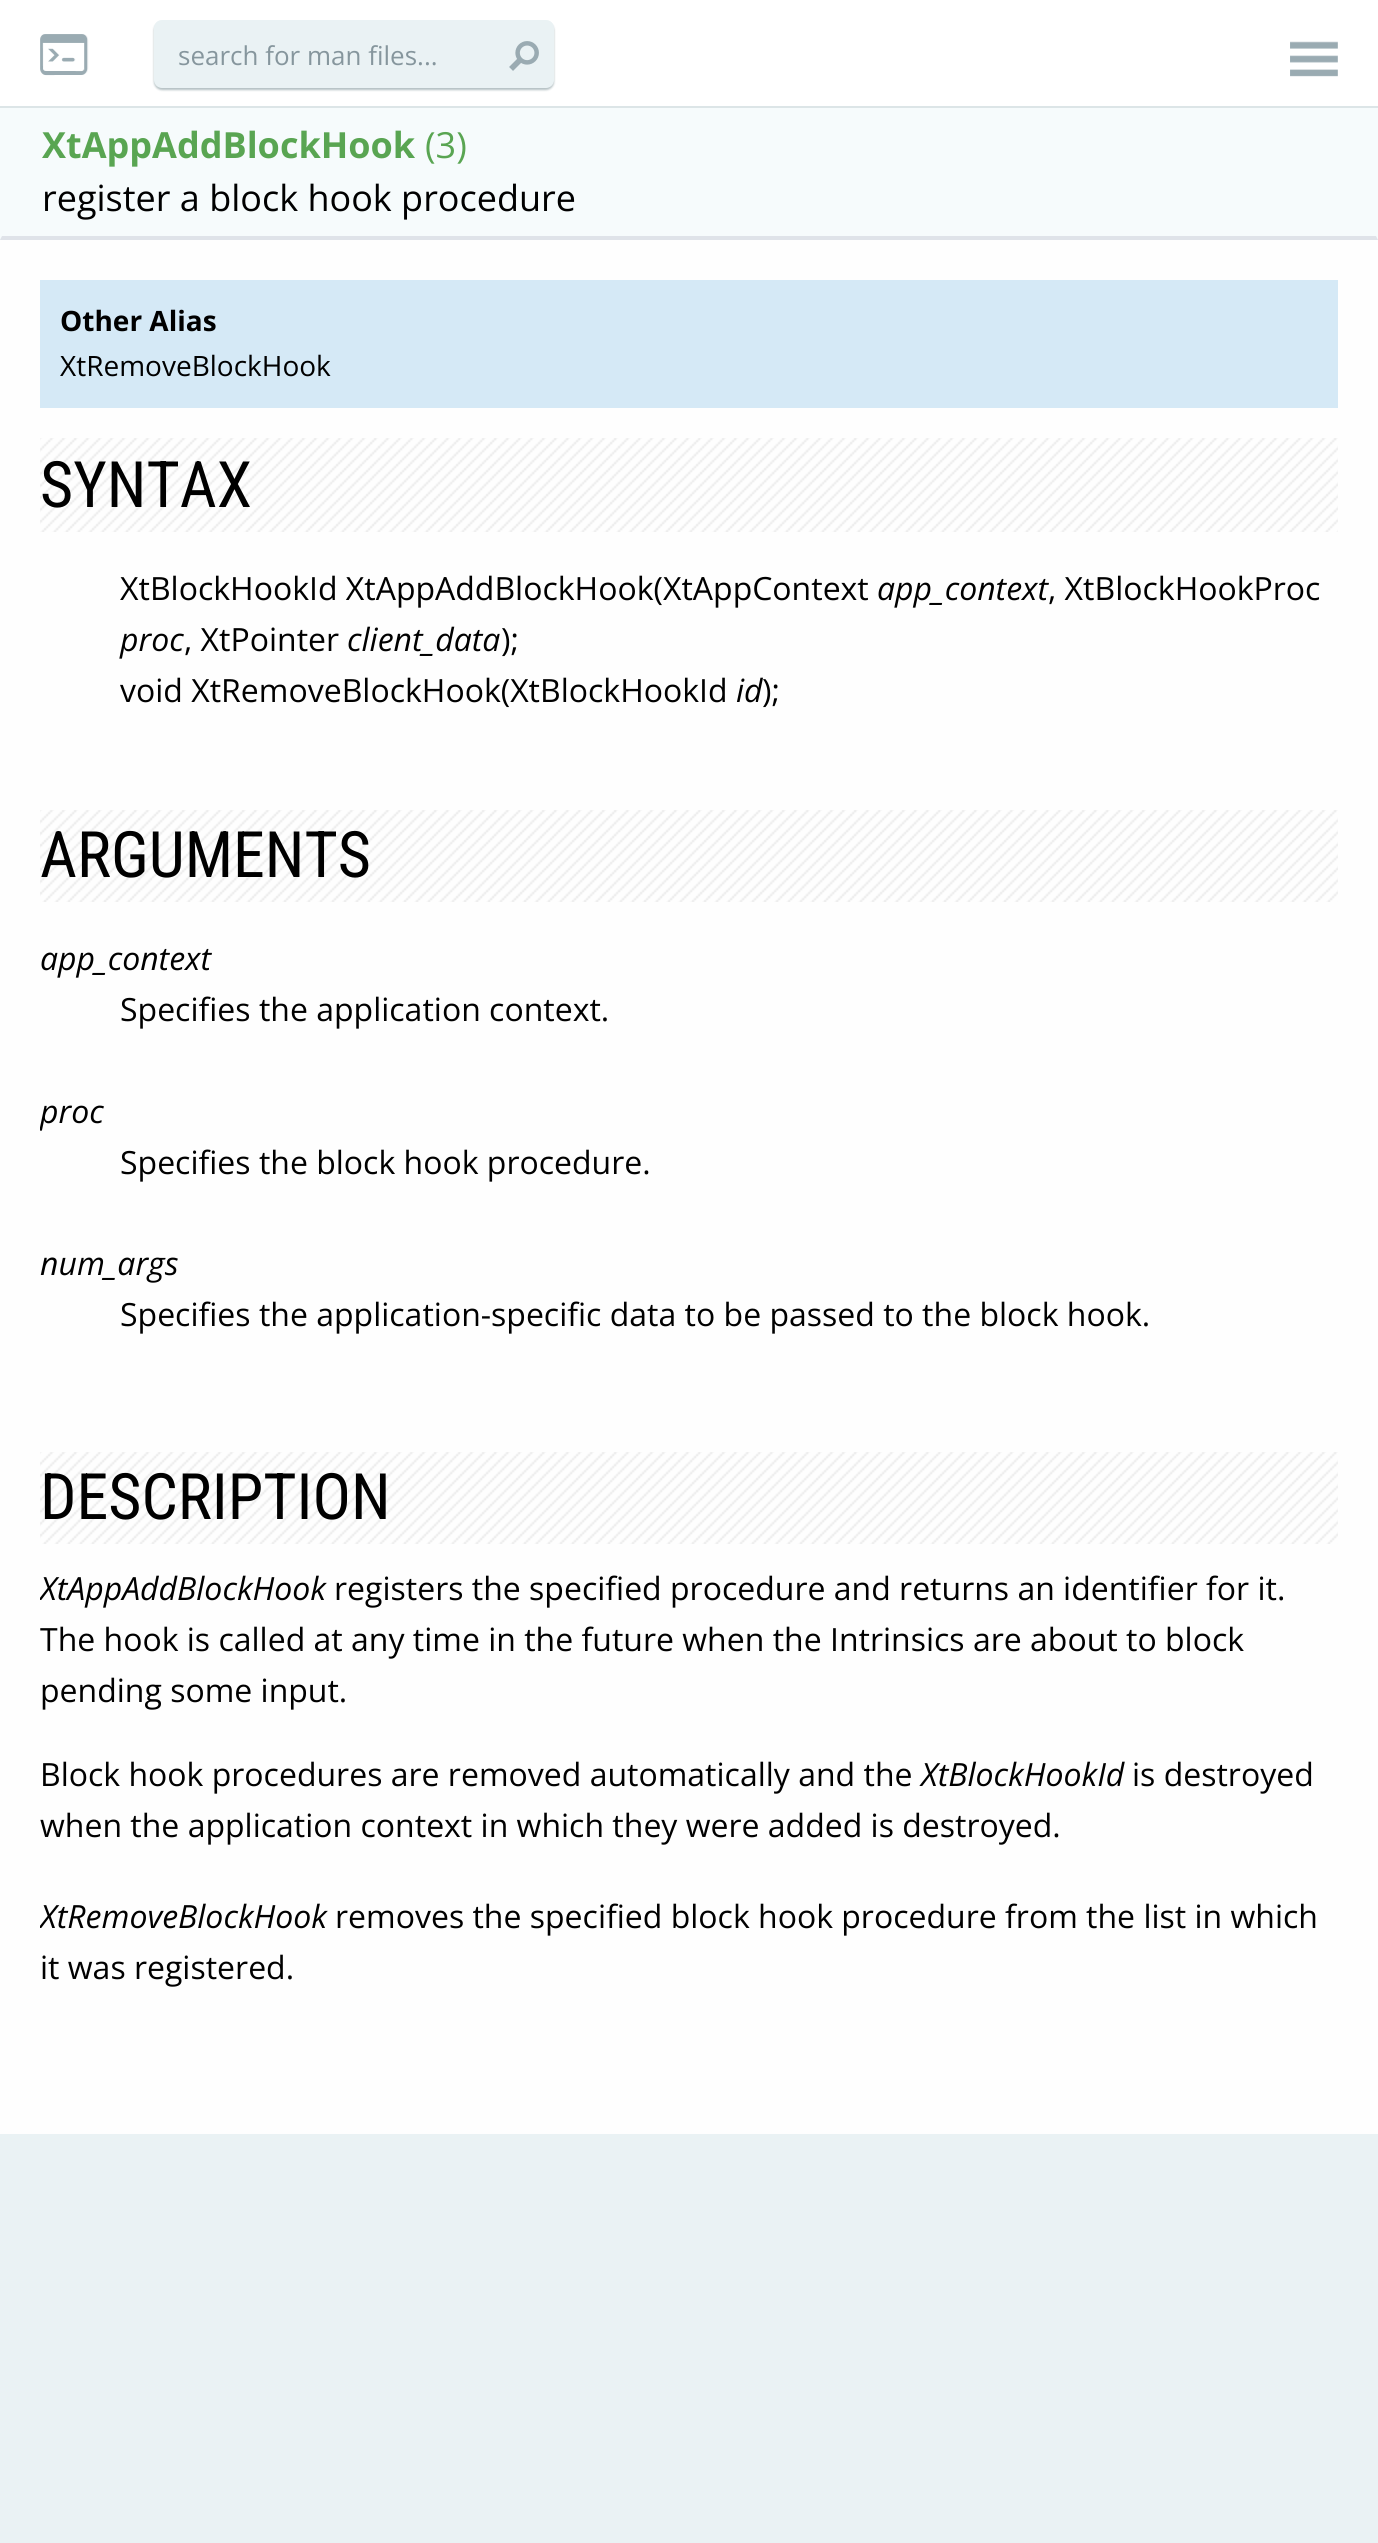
#include <cairo/cairo.h>
#include <math.h>
#include <stddef.h>

typedef struct { double x, y; const char *s; } line_t;
static cairo_t *cr;

static void rgb(unsigned color)
{
	cairo_set_source_rgb(cr, (color >> 16) / 255.0, (color >> 8 & 255) / 255.0, (color & 255) / 255.0);
}

static void rrect(double x, double y, double w, double h, double r)
{
	cairo_new_sub_path(cr);
	cairo_arc(cr, x + w - r, y + h - r, r, 0, M_PI / 2);
	cairo_arc(cr, x + r, y + h - r, r, M_PI / 2, M_PI);
	cairo_arc(cr, x + r, y + r, r, M_PI, 1.5 * M_PI);
	cairo_arc(cr, x + w - r, y + r, r, 1.5 * M_PI, 2 * M_PI);
	cairo_close_path(cr);
}

static void soft_shadow(double x, double y, double w, double h, double r, double blur, double alpha)
{
	cairo_push_group_with_content(cr, CAIRO_CONTENT_ALPHA);
	cairo_set_operator(cr, CAIRO_OPERATOR_SOURCE);
	for (int i = 15; i >= -15 && fmin(w, h) + blur * i / 3 > 0; i -= 2) {
		double e = blur * i / 6;
		cairo_set_source_rgba(cr, 0, 0, 0, alpha * erfc((i - 1) / 8.5) / 2);
		rrect(x - e, y - e, w + 2 * e, h + 2 * e, fmax(0, fmin(r + e + blur * .6, fmin(w, h) / 2 + e)));
		cairo_fill(cr);
	}
	cairo_pattern_t *soft = cairo_pop_group(cr);
	cairo_mask(cr, soft);
	cairo_pattern_destroy(soft);
}

static void image(const char *path, double x, double y, double w, double h)
{
	cairo_surface_t *image = cairo_image_surface_create_from_png(path);
	cairo_save(cr);
	cairo_set_source_surface(cr, image, x, y);
	cairo_rectangle(cr, x, y, w, h);
	cairo_fill(cr);
	cairo_restore(cr);
	cairo_surface_destroy(image);
}

int main(void) {
	cairo_surface_t *surface = cairo_image_surface_create(CAIRO_FORMAT_RGB24, 1378, 2543);
	cr = cairo_create(surface);
	cairo_font_options_t *options = cairo_font_options_create();
	cairo_font_options_set_hint_metrics(options, CAIRO_HINT_METRICS_OFF);
	cairo_font_options_set_hint_style(options, CAIRO_HINT_STYLE_NONE);
	cairo_set_font_options(cr, options);
	cairo_set_miter_limit(cr, 4);
	rgb(0xeaf2f4);
	cairo_paint(cr);
	rgb(0xffffff);
	cairo_rectangle(cr, 0, 0, 1378, 106);
	cairo_fill(cr);
	rgb(0xdce5e7);
	cairo_rectangle(cr, 0, 106, 1378, 2);
	cairo_fill(cr);
	image("img/1.png", 40, 34, 49, 42);
	rgb(0x062f37);
	soft_shadow(154, 22, 400, 68, 8, 1, 0.3);
	rgb(0xeaf2f4);
	rrect(154, 20, 400, 68, 8);
	cairo_fill(cr);
	image("img/2.png", 509, 41, 30, 30);
	image("img/3.png", 1290, 41, 48, 36);
	rgb(0xfefefe);
	cairo_rectangle(cr, 0, 240, 1378, 1894);
	cairo_fill(cr);
	rgb(0xf6fbfc);
	cairo_rectangle(cr, 0, 108, 1378, 132);
	cairo_fill(cr);
	rgb(0xdfe3e9);
	cairo_new_path(cr);
	cairo_move_to(cr, 1378, 240);
	cairo_line_to(cr, 0, 240);
	cairo_line_to(cr, 2, 236);
	cairo_line_to(cr, 1376, 236);
	cairo_close_path(cr);
	cairo_fill(cr);
	rgb(0xd5e9f6);
	cairo_rectangle(cr, 40, 280, 1298, 128);
	cairo_fill(cr);
	image("img/4.png", 40, 438, 1298, 94);
	image("img/5.png", 40, 810, 1298, 92);
	image("img/5.png", 40, 1452, 1298, 92);
	cairo_select_font_face(cr, "Open Sans", CAIRO_FONT_SLANT_NORMAL, CAIRO_FONT_WEIGHT_NORMAL);
	cairo_set_font_size(cr, 26);
	rgb(0x86969d);
	cairo_move_to(cr, 178, 65);
	cairo_show_text(cr, "search for man files...");
	cairo_select_font_face(cr, "Open Sans", CAIRO_FONT_SLANT_NORMAL, CAIRO_FONT_WEIGHT_BOLD);
	cairo_set_font_size(cr, 36);
	rgb(0x59a552);
	cairo_move_to(cr, 42, 158);
	cairo_show_text(cr, "XtAppAddBlockHook");
	cairo_select_font_face(cr, "Open Sans", CAIRO_FONT_SLANT_NORMAL, CAIRO_FONT_WEIGHT_NORMAL);
	cairo_move_to(cr, 425, 158);
	cairo_show_text(cr, "(3)");
	rgb(0x000000);
	cairo_move_to(cr, 42, 211);
	cairo_show_text(cr, "register a block hook procedure");
	cairo_select_font_face(cr, "Open Sans", CAIRO_FONT_SLANT_NORMAL, CAIRO_FONT_WEIGHT_BOLD);
	cairo_set_font_size(cr, 28);
	cairo_move_to(cr, 60, 331);
	cairo_show_text(cr, "Other Alias");
	cairo_select_font_face(cr, "Open Sans", CAIRO_FONT_SLANT_NORMAL, CAIRO_FONT_WEIGHT_NORMAL);
	cairo_move_to(cr, 60, 376);
	cairo_show_text(cr, "XtRemoveBlockHook");
	cairo_select_font_face(cr, "Roboto Condensed", CAIRO_FONT_SLANT_NORMAL, CAIRO_FONT_WEIGHT_NORMAL);
	cairo_set_font_size(cr, 64);
	cairo_move_to(cr, 40, 507);
	cairo_show_text(cr, "SYNTAX");
	cairo_select_font_face(cr, "Open Sans", CAIRO_FONT_SLANT_NORMAL, CAIRO_FONT_WEIGHT_NORMAL);
	cairo_set_font_size(cr, 32);
	cairo_move_to(cr, 120, 600);
	cairo_show_text(cr, "XtBlockHookId XtAppAddBlockHook(XtAppContext");
	cairo_select_font_face(cr, "Open Sans", CAIRO_FONT_SLANT_ITALIC, CAIRO_FONT_WEIGHT_NORMAL);
	cairo_move_to(cr, 877, 600);
	cairo_show_text(cr, "app_context");
	cairo_select_font_face(cr, "Open Sans", CAIRO_FONT_SLANT_NORMAL, CAIRO_FONT_WEIGHT_NORMAL);
	cairo_move_to(cr, 1048, 600);
	cairo_show_text(cr, ", XtBlockHookProc");
	cairo_select_font_face(cr, "Open Sans", CAIRO_FONT_SLANT_ITALIC, CAIRO_FONT_WEIGHT_NORMAL);
	cairo_move_to(cr, 120, 651);
	cairo_show_text(cr, "proc");
	cairo_select_font_face(cr, "Open Sans", CAIRO_FONT_SLANT_NORMAL, CAIRO_FONT_WEIGHT_NORMAL);
	cairo_move_to(cr, 184, 651);
	cairo_show_text(cr, ", XtPointer");
	cairo_select_font_face(cr, "Open Sans", CAIRO_FONT_SLANT_ITALIC, CAIRO_FONT_WEIGHT_NORMAL);
	cairo_move_to(cr, 347, 651);
	cairo_show_text(cr, "client_data");
	cairo_select_font_face(cr, "Open Sans", CAIRO_FONT_SLANT_NORMAL, CAIRO_FONT_WEIGHT_NORMAL);
	cairo_move_to(cr, 501, 651);
	cairo_show_text(cr, ");");
	cairo_move_to(cr, 120, 702);
	cairo_show_text(cr, "void XtRemoveBlockHook(XtBlockHookId");
	cairo_select_font_face(cr, "Open Sans", CAIRO_FONT_SLANT_ITALIC, CAIRO_FONT_WEIGHT_NORMAL);
	cairo_move_to(cr, 736, 702);
	cairo_show_text(cr, "id");
	cairo_select_font_face(cr, "Open Sans", CAIRO_FONT_SLANT_NORMAL, CAIRO_FONT_WEIGHT_NORMAL);
	cairo_move_to(cr, 762, 702);
	cairo_show_text(cr, ");");
	cairo_select_font_face(cr, "Roboto Condensed", CAIRO_FONT_SLANT_NORMAL, CAIRO_FONT_WEIGHT_NORMAL);
	cairo_set_font_size(cr, 64);
	cairo_move_to(cr, 40, 877);
	cairo_show_text(cr, "ARGUMENTS");
	cairo_select_font_face(cr, "Open Sans", CAIRO_FONT_SLANT_ITALIC, CAIRO_FONT_WEIGHT_NORMAL);
	cairo_set_font_size(cr, 32);
	cairo_move_to(cr, 40, 970);
	cairo_show_text(cr, "app_context");
	cairo_select_font_face(cr, "Open Sans", CAIRO_FONT_SLANT_NORMAL, CAIRO_FONT_WEIGHT_NORMAL);
	cairo_move_to(cr, 120, 1021);
	cairo_show_text(cr, "Specifies the application context.");
	cairo_save(cr);
	cairo_rectangle(cr, 40, 810, 1298, 582);
	cairo_clip(cr);
	cairo_select_font_face(cr, "Open Sans", CAIRO_FONT_SLANT_ITALIC, CAIRO_FONT_WEIGHT_NORMAL);
	cairo_move_to(cr, 40, 1123);
	cairo_show_text(cr, "proc");
	cairo_restore(cr);
	cairo_move_to(cr, 120, 1174);
	cairo_show_text(cr, "Specifies the block hook procedure.");
	cairo_select_font_face(cr, "Open Sans", CAIRO_FONT_SLANT_ITALIC, CAIRO_FONT_WEIGHT_NORMAL);
	cairo_move_to(cr, 40, 1275);
	cairo_show_text(cr, "num_args");
	cairo_select_font_face(cr, "Open Sans", CAIRO_FONT_SLANT_NORMAL, CAIRO_FONT_WEIGHT_NORMAL);
	cairo_move_to(cr, 120, 1326);
	cairo_show_text(cr, "Specifies the application-specific data to be passed to the block hook.");
	cairo_select_font_face(cr, "Roboto Condensed", CAIRO_FONT_SLANT_NORMAL, CAIRO_FONT_WEIGHT_NORMAL);
	cairo_set_font_size(cr, 64);
	cairo_move_to(cr, 40, 1519);
	cairo_show_text(cr, "DESCRIPTION");
	cairo_save(cr);
	cairo_rectangle(cr, 40, 1452, 1298, 582);
	cairo_clip(cr);
	cairo_select_font_face(cr, "Open Sans", CAIRO_FONT_SLANT_ITALIC, CAIRO_FONT_WEIGHT_NORMAL);
	cairo_set_font_size(cr, 32);
	cairo_move_to(cr, 40, 1600);
	cairo_show_text(cr, "XtAppAddBlockHook");
	cairo_restore(cr);
	cairo_select_font_face(cr, "Open Sans", CAIRO_FONT_SLANT_NORMAL, CAIRO_FONT_WEIGHT_NORMAL);
	cairo_set_font_size(cr, 32);
	{
		static const line_t items[] = {
			{334, 1600, "registers the specified procedure and returns an identifier for it."},
			{40, 1651, "The hook is called at any time in the future when the Intrinsics are about to block"},
			{40, 1702, "pending some input."},
			{40, 1786, "Block hook procedures are removed automatically and the"},
		};
		for (size_t i = 0; i < sizeof items / sizeof *items; i++) {
			cairo_move_to(cr, items[i].x, items[i].y);
			cairo_show_text(cr, items[i].s);
		}
	}
	cairo_select_font_face(cr, "Open Sans", CAIRO_FONT_SLANT_ITALIC, CAIRO_FONT_WEIGHT_NORMAL);
	cairo_move_to(cr, 921, 1786);
	cairo_show_text(cr, "XtBlockHookId");
	cairo_select_font_face(cr, "Open Sans", CAIRO_FONT_SLANT_NORMAL, CAIRO_FONT_WEIGHT_NORMAL);
	cairo_move_to(cr, 1132, 1786);
	cairo_show_text(cr, "is destroyed");
	cairo_move_to(cr, 40, 1837);
	cairo_show_text(cr, "when the application context in which they were added is destroyed.");
	cairo_save(cr);
	cairo_rectangle(cr, 40, 1452, 1298, 582);
	cairo_clip(cr);
	cairo_select_font_face(cr, "Open Sans", CAIRO_FONT_SLANT_ITALIC, CAIRO_FONT_WEIGHT_NORMAL);
	cairo_move_to(cr, 40, 1928);
	cairo_show_text(cr, "XtRemoveBlockHook");
	cairo_restore(cr);
	cairo_move_to(cr, 335, 1928);
	cairo_show_text(cr, "removes the specified block hook procedure from the list in which");
	cairo_move_to(cr, 40, 1979);
	cairo_show_text(cr, "it was registered.");
	cairo_surface_write_to_png(surface, "page.png");
	cairo_font_options_destroy(options);
	cairo_destroy(cr);
	cairo_surface_destroy(surface);
	return 0;
}
